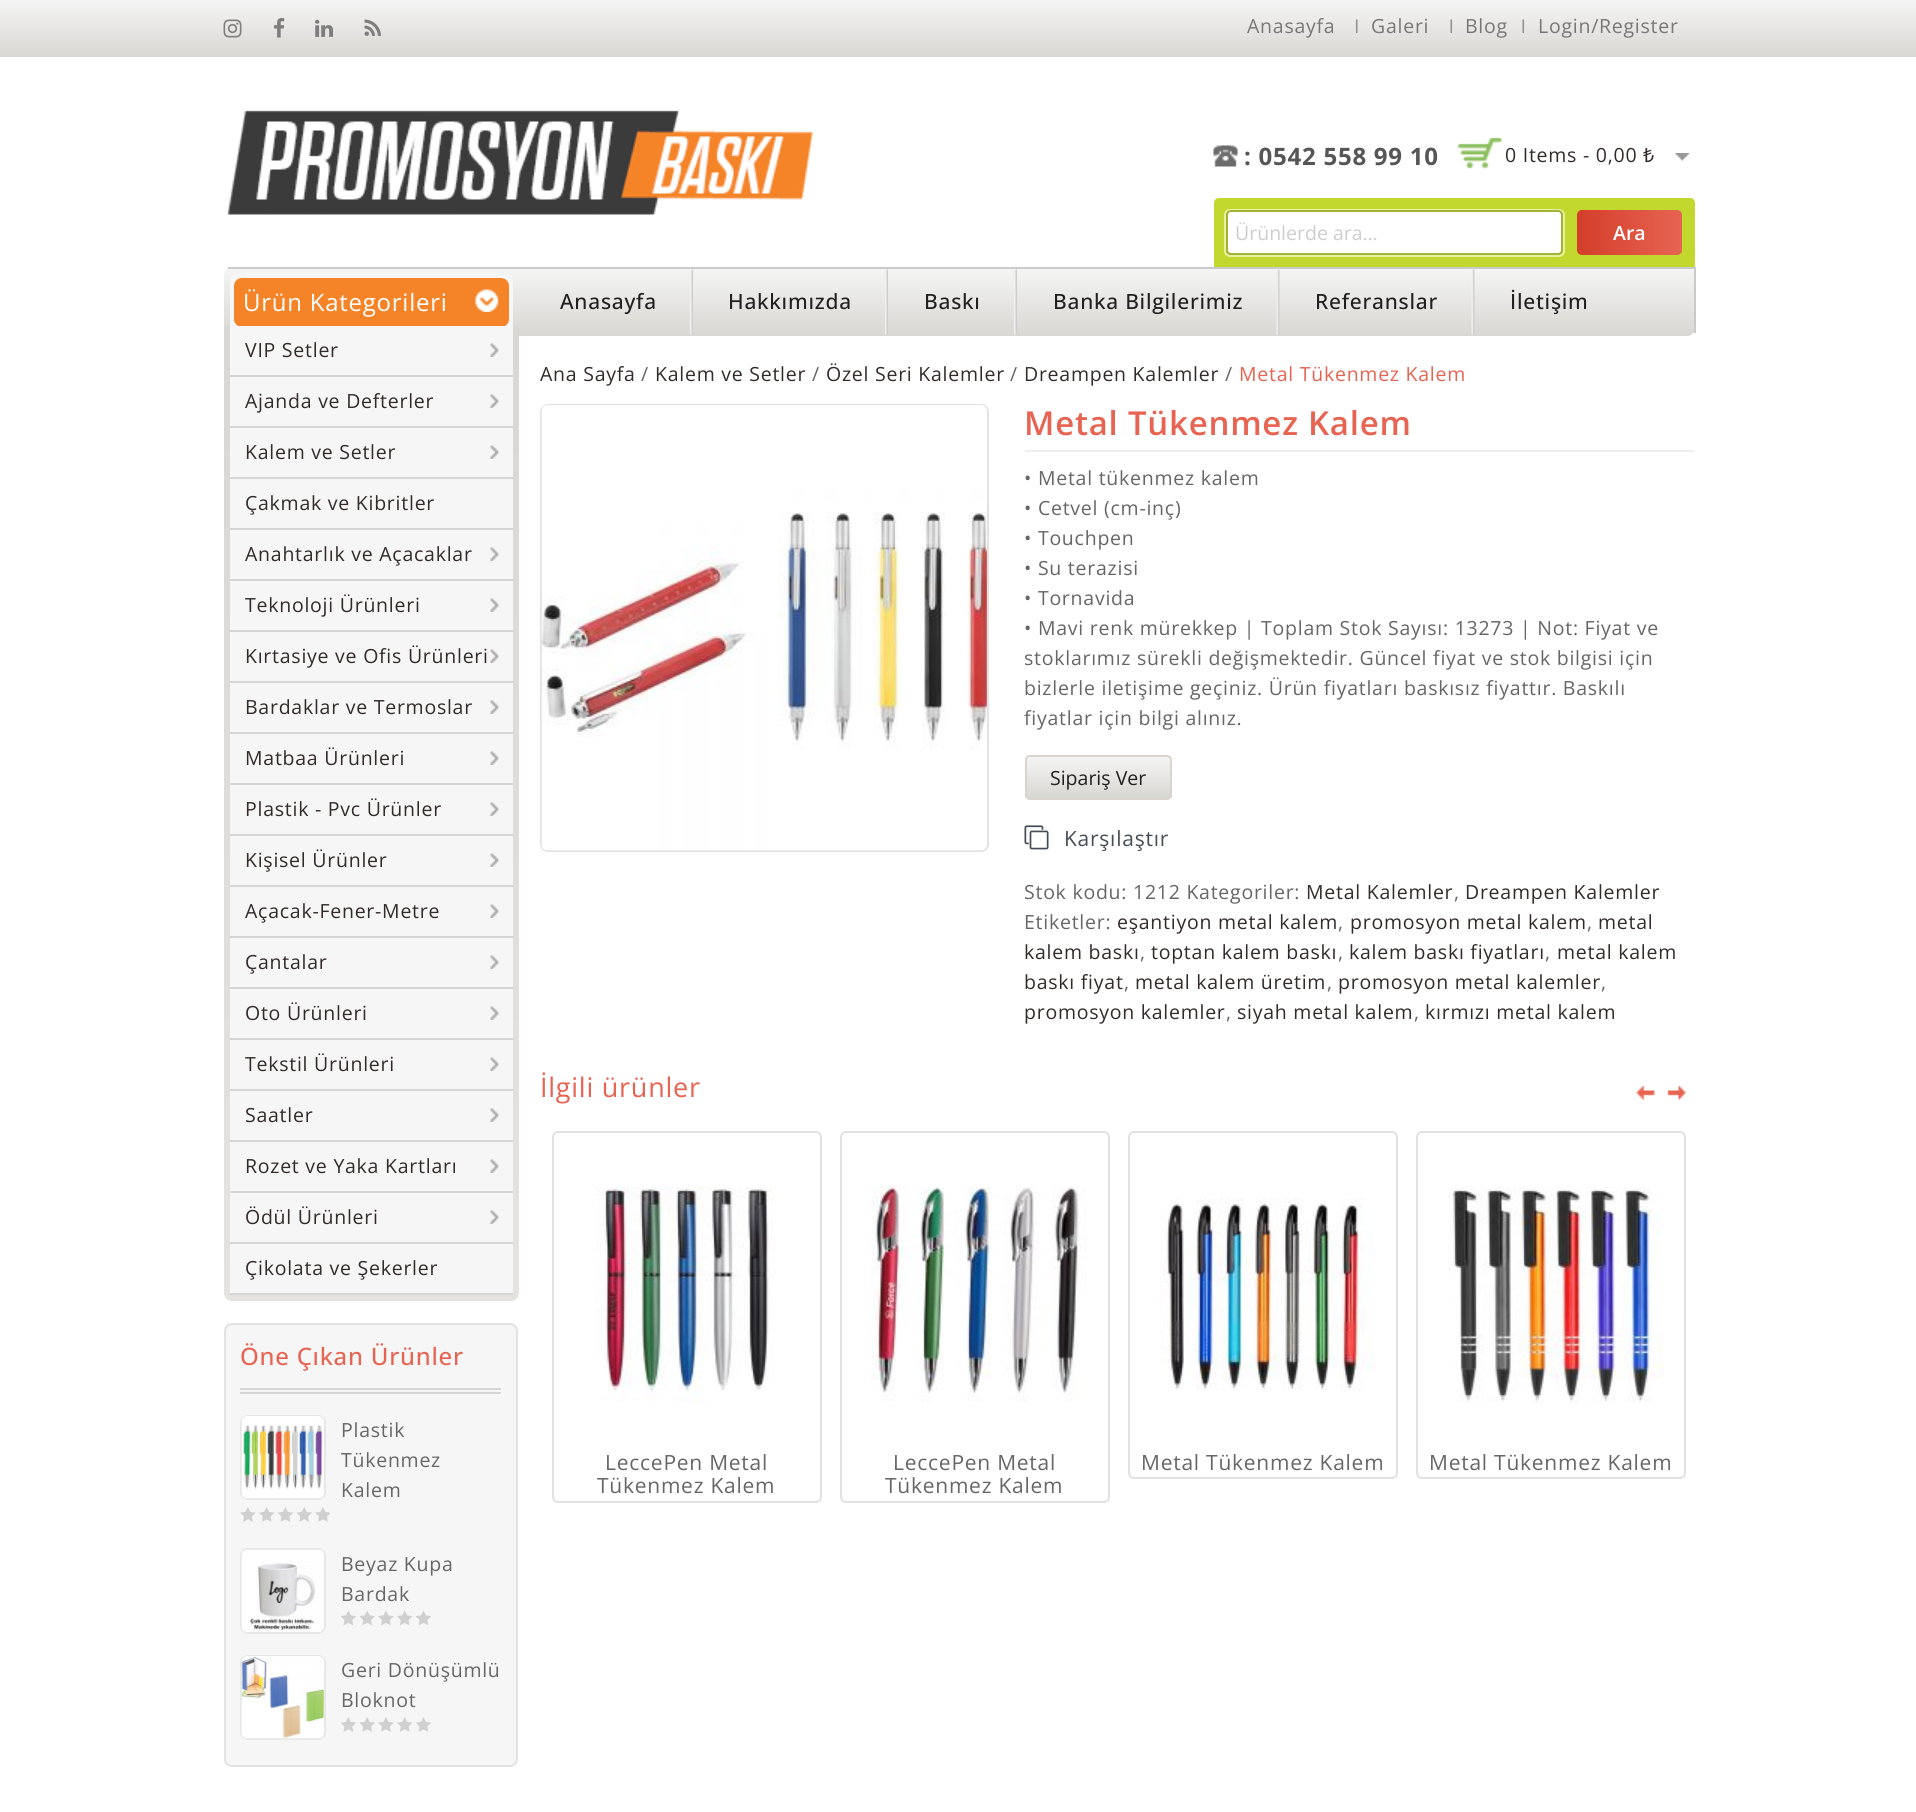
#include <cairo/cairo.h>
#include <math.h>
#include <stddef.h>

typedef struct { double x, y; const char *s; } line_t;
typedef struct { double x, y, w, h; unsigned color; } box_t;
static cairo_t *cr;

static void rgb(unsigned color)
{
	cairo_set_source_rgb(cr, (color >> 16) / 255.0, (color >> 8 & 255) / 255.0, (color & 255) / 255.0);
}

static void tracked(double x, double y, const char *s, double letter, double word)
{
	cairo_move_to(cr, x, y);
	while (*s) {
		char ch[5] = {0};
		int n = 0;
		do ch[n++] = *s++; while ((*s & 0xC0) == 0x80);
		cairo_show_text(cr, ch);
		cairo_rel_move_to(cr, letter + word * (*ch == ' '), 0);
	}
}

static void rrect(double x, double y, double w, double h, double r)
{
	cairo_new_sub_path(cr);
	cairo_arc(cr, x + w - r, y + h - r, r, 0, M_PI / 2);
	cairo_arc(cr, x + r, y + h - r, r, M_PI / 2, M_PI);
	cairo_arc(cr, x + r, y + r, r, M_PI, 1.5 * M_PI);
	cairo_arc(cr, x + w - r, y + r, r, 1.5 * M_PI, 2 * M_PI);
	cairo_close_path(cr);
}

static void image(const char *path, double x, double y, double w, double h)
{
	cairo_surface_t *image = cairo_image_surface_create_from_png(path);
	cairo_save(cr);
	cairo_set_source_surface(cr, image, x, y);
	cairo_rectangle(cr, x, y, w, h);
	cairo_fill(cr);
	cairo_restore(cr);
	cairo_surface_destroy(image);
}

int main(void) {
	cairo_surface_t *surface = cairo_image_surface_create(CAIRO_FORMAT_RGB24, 1916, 1812);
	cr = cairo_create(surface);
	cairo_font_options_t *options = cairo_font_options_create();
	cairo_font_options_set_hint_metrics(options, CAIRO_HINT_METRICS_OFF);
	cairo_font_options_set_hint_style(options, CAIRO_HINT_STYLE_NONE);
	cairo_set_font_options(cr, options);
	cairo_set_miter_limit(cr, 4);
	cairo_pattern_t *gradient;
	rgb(0xffffff);
	cairo_paint(cr);
	gradient = cairo_pattern_create_linear(959, 0, 959, 57);
	cairo_pattern_add_color_stop_rgba(gradient, 0, 0.961, 0.961, 0.961, 1);
	cairo_pattern_add_color_stop_rgba(gradient, 1, 0.847, 0.843, 0.827, 1);
	cairo_set_source(cr, gradient);
	cairo_pattern_destroy(gradient);
	cairo_rectangle(cr, 0, 0, 1916, 57);
	cairo_fill(cr);
	image("img/1.png", 223, 19, 19, 19);
	image("img/2.png", 274, 18, 11, 20);
	image("img/3.png", 315, 19, 18, 18);
	image("img/4.png", 364, 19, 17, 17);
	image("img/5.png", 1356, 19, 2, 14);
	image("img/6.png", 1450, 19, 2, 14);
	image("img/6.png", 1522, 19, 2, 14);
	image("img/7.png", 227, 110, 587, 105);
	image("img/8.png", 1213, 145, 25, 22);
	image("img/9.png", 1457, 137, 45, 32);
	image("img/10.png", 1675, 153, 14, 8);
	rgb(0xc2d82e);
	cairo_new_path(cr);
	cairo_move_to(cr, 1219, 198);
	cairo_line_to(cr, 1690, 198);
	cairo_curve_to(cr, 1693, 198, 1695, 200, 1695, 203);
	cairo_line_to(cr, 1695, 267);
	cairo_line_to(cr, 1214, 267);
	cairo_line_to(cr, 1214, 203);
	cairo_curve_to(cr, 1214, 200, 1216, 198, 1219, 198);
	cairo_close_path(cr);
	cairo_fill(cr);
	rrect(1225, 210, 339, 46, 5);
	rgb(0xe7f1a1);
	cairo_stroke(cr);
	rgb(0xffffff);
	rrect(1227, 211, 335, 43, 4);
	cairo_fill_preserve(cr);
	rgb(0xa3b338);
	cairo_stroke(cr);
	gradient = cairo_pattern_create_linear(1577, 233, 1682, 233);
	cairo_pattern_add_color_stop_rgba(gradient, 0, 0.831, 0.243, 0.165, 1);
	cairo_pattern_add_color_stop_rgba(gradient, 1, 0.906, 0.392, 0.322, 1);
	cairo_set_source(cr, gradient);
	cairo_pattern_destroy(gradient);
	rrect(1577, 210, 105, 45, 5);
	cairo_fill(cr);
	cairo_save(cr);
	cairo_new_path(cr);
	cairo_move_to(cr, 232, 267);
	cairo_line_to(cr, 1695, 267);
	cairo_line_to(cr, 1695, 328);
	cairo_curve_to(cr, 1695, 332.5, 1691.5, 336, 1687, 336);
	cairo_line_to(cr, 232, 336);
	cairo_curve_to(cr, 227.5, 336, 224, 332.5, 224, 328);
	cairo_line_to(cr, 224, 275);
	cairo_curve_to(cr, 224, 270.5, 227.5, 267, 232, 267);
	cairo_close_path(cr);
	cairo_clip(cr);
	gradient = cairo_pattern_create_linear(959, 201, 959, 269);
	cairo_pattern_add_color_stop_rgba(gradient, 0, 0.961, 0.961, 0.961, 1);
	cairo_pattern_add_color_stop_rgba(gradient, 1, 0.847, 0.843, 0.827, 1);
	cairo_set_source(cr, gradient);
	cairo_pattern_destroy(gradient);
	cairo_rectangle(cr, 224, 268, 4, 1);
	cairo_fill(cr);
	gradient = cairo_pattern_create_linear(959, 268, 959, 336);
	cairo_pattern_add_color_stop_rgba(gradient, 0, 0.961, 0.961, 0.961, 1);
	cairo_pattern_add_color_stop_rgba(gradient, 1, 0.847, 0.843, 0.827, 1);
	cairo_set_source(cr, gradient);
	cairo_pattern_destroy(gradient);
	cairo_new_path(cr);
	cairo_move_to(cr, 224, 269);
	cairo_line_to(cr, 1695, 269);
	cairo_line_to(cr, 1695, 328);
	cairo_curve_to(cr, 1695, 332.5, 1691.5, 336, 1687, 336);
	cairo_line_to(cr, 232, 336);
	cairo_curve_to(cr, 227.5, 336, 224, 332.5, 224, 328);
	cairo_close_path(cr);
	cairo_fill(cr);
	cairo_restore(cr);
	rgb(0xcbcaca);
	cairo_rectangle(cr, 228, 267, 1467, 2);
	cairo_fill(cr);
	cairo_rectangle(cr, 1694, 267, 2, 66);
	cairo_fill(cr);
	rgb(0xf6f6f6);
	rrect(230, 273, 283, 59, 8);
	cairo_fill(cr);
	rgb(0xf58429);
	rrect(234, 278, 275, 49, 8);
	cairo_fill(cr);
	image("img/11.png", 475, 289, 24, 23);
	gradient = cairo_pattern_create_linear(371, 326, 371, 1301);
	cairo_pattern_add_color_stop_rgba(gradient, 0, 0.847, 0.843, 0.827, 1);
	cairo_pattern_add_color_stop_rgba(gradient, 1, 0.894, 0.89, 0.878, 1);
	cairo_set_source(cr, gradient);
	cairo_pattern_destroy(gradient);
	cairo_new_path(cr);
	cairo_move_to(cr, 224, 326);
	cairo_line_to(cr, 519, 326);
	cairo_line_to(cr, 519, 1293);
	cairo_curve_to(cr, 519, 1297.5, 515.5, 1301, 511, 1301);
	cairo_line_to(cr, 232, 1301);
	cairo_curve_to(cr, 227.5, 1301, 224, 1297.5, 224, 1293);
	cairo_close_path(cr);
	cairo_fill(cr);
	rgb(0xf6f6f6);
	cairo_rectangle(cr, 230, 326, 283, 49);
	cairo_fill(cr);
	image("img/12.png", 490, 343, 10, 14);
	rgb(0xd5d5d5);
	cairo_rectangle(cr, 230, 375, 283, 2);
	cairo_fill(cr);
	rgb(0xf6f6f6);
	cairo_rectangle(cr, 230, 377, 283, 49);
	cairo_fill(cr);
	image("img/12.png", 490, 394, 10, 14);
	rgb(0xd5d5d5);
	cairo_rectangle(cr, 230, 426, 283, 2);
	cairo_fill(cr);
	rgb(0xf6f6f6);
	cairo_rectangle(cr, 230, 428, 283, 49);
	cairo_fill(cr);
	image("img/12.png", 490, 445, 10, 14);
	{
		static const box_t items[] = {
			{230, 477, 283, 2, 0xd5d5d5},
			{230, 479, 283, 49, 0xf6f6f6},
			{230, 528, 283, 2, 0xd5d5d5},
			{230, 530, 283, 49, 0xf6f6f6},
		};
		for (size_t i = 0; i < sizeof items / sizeof *items; i++) {
			rgb(items[i].color);
			cairo_rectangle(cr, items[i].x, items[i].y, items[i].w, items[i].h);
			cairo_fill(cr);
		}
	}
	image("img/12.png", 490, 547, 10, 14);
	rgb(0xd5d5d5);
	cairo_rectangle(cr, 230, 579, 283, 2);
	cairo_fill(cr);
	rgb(0xf6f6f6);
	cairo_rectangle(cr, 230, 581, 283, 49);
	cairo_fill(cr);
	image("img/12.png", 490, 598, 10, 14);
	rgb(0xd5d5d5);
	cairo_rectangle(cr, 230, 630, 283, 2);
	cairo_fill(cr);
	rgb(0xf6f6f6);
	cairo_rectangle(cr, 230, 632, 283, 49);
	cairo_fill(cr);
	image("img/12.png", 490, 649, 10, 14);
	rgb(0xd5d5d5);
	cairo_rectangle(cr, 230, 681, 283, 2);
	cairo_fill(cr);
	rgb(0xf6f6f6);
	cairo_rectangle(cr, 230, 683, 283, 49);
	cairo_fill(cr);
	image("img/12.png", 490, 700, 10, 14);
	rgb(0xd5d5d5);
	cairo_rectangle(cr, 230, 732, 283, 2);
	cairo_fill(cr);
	rgb(0xf6f6f6);
	cairo_rectangle(cr, 230, 734, 283, 49);
	cairo_fill(cr);
	image("img/12.png", 490, 751, 10, 14);
	rgb(0xd5d5d5);
	cairo_rectangle(cr, 230, 783, 283, 2);
	cairo_fill(cr);
	rgb(0xf6f6f6);
	cairo_rectangle(cr, 230, 785, 283, 49);
	cairo_fill(cr);
	image("img/12.png", 490, 802, 10, 14);
	rgb(0xd5d5d5);
	cairo_rectangle(cr, 230, 834, 283, 2);
	cairo_fill(cr);
	rgb(0xf6f6f6);
	cairo_rectangle(cr, 230, 836, 283, 49);
	cairo_fill(cr);
	image("img/12.png", 490, 853, 10, 14);
	rgb(0xd5d5d5);
	cairo_rectangle(cr, 230, 885, 283, 2);
	cairo_fill(cr);
	rgb(0xf6f6f6);
	cairo_rectangle(cr, 230, 887, 283, 49);
	cairo_fill(cr);
	image("img/12.png", 490, 904, 10, 14);
	rgb(0xd5d5d5);
	cairo_rectangle(cr, 230, 936, 283, 2);
	cairo_fill(cr);
	rgb(0xf6f6f6);
	cairo_rectangle(cr, 230, 938, 283, 49);
	cairo_fill(cr);
	image("img/12.png", 490, 955, 10, 14);
	rgb(0xd5d5d5);
	cairo_rectangle(cr, 230, 987, 283, 2);
	cairo_fill(cr);
	rgb(0xf6f6f6);
	cairo_rectangle(cr, 230, 989, 283, 49);
	cairo_fill(cr);
	image("img/12.png", 490, 1006, 10, 14);
	rgb(0xd5d5d5);
	cairo_rectangle(cr, 230, 1038, 283, 2);
	cairo_fill(cr);
	rgb(0xf6f6f6);
	cairo_rectangle(cr, 230, 1040, 283, 49);
	cairo_fill(cr);
	image("img/12.png", 490, 1057, 10, 14);
	rgb(0xd5d5d5);
	cairo_rectangle(cr, 230, 1089, 283, 2);
	cairo_fill(cr);
	rgb(0xf6f6f6);
	cairo_rectangle(cr, 230, 1091, 283, 49);
	cairo_fill(cr);
	image("img/12.png", 490, 1108, 10, 14);
	rgb(0xd5d5d5);
	cairo_rectangle(cr, 230, 1140, 283, 2);
	cairo_fill(cr);
	rgb(0xf6f6f6);
	cairo_rectangle(cr, 230, 1142, 283, 49);
	cairo_fill(cr);
	image("img/12.png", 490, 1159, 10, 14);
	rgb(0xd5d5d5);
	cairo_rectangle(cr, 230, 1191, 283, 2);
	cairo_fill(cr);
	rgb(0xf6f6f6);
	cairo_rectangle(cr, 230, 1193, 283, 49);
	cairo_fill(cr);
	image("img/12.png", 490, 1210, 10, 14);
	{
		static const box_t items[] = {
			{230, 1242, 283, 2, 0xd5d5d5},
			{230, 1244, 283, 49, 0xf6f6f6},
			{230, 1293, 283, 2, 0xd5d5d5},
		};
		for (size_t i = 0; i < sizeof items / sizeof *items; i++) {
			rgb(items[i].color);
			cairo_rectangle(cr, items[i].x, items[i].y, items[i].w, items[i].h);
			cairo_fill(cr);
		}
	}
	image("img/13.png", 690, 268, 3, 67);
	image("img/13.png", 885, 268, 3, 67);
	image("img/13.png", 1014, 268, 3, 67);
	image("img/14.png", 1276, 268, 4, 67);
	image("img/14.png", 1471, 268, 4, 67);
	rgb(0xf6f6f6);
	rrect(225, 1324, 292, 442, 7);
	cairo_fill_preserve(cr);
	rgb(0xe3e2e2);
	cairo_stroke(cr);
	rgb(0xd5d5d5);
	cairo_rectangle(cr, 240, 1388, 261, 2);
	cairo_fill(cr);
	cairo_rectangle(cr, 240, 1392, 261, 2);
	cairo_fill(cr);
	rrect(241, 1416, 84, 83, 7);
	rgb(0xe7e7e7);
	cairo_stroke(cr);
	image("img/15.png", 241, 1416, 83, 83);
	image("img/16.png", 240, 1507, 90, 15);
	rrect(241, 1549, 84, 84, 7);
	cairo_stroke(cr);
	image("img/17.png", 241, 1549, 83, 83);
	image("img/18.png", 341, 1610, 90, 16);
	rrect(241, 1656, 84, 83, 7);
	cairo_stroke(cr);
	image("img/19.png", 241, 1656, 83, 83);
	image("img/20.png", 341, 1717, 90, 15);
	rrect(541, 405, 447, 446, 7);
	rgb(0xe3e2e2);
	cairo_stroke(cr);
	image("img/21.png", 541, 405, 446, 446);
	rgb(0xefefef);
	cairo_rectangle(cr, 1025, 450, 669, 2);
	cairo_fill(cr);
	cairo_save(cr);
	rrect(1025, 755, 147, 45, 5);
	cairo_clip(cr);
	gradient = cairo_pattern_create_linear(1098, 756, 1098, 798);
	cairo_pattern_add_color_stop_rgba(gradient, 0, 0.961, 0.961, 0.961, 1);
	cairo_pattern_add_color_stop_rgba(gradient, 1, 0.847, 0.843, 0.827, 1);
	cairo_set_source(cr, gradient);
	cairo_pattern_destroy(gradient);
	cairo_rectangle(cr, 1025, 756, 147, 42);
	cairo_fill(cr);
	cairo_restore(cr);
	rrect(1026, 756, 145, 43, 4);
	rgb(0xdad4cd);
	cairo_stroke(cr);
	image("img/22.png", 1024, 825, 25, 25);
	image("img/23.png", 1636, 1085, 19, 16);
	image("img/24.png", 1667, 1085, 20, 16);
	rrect(553, 1132, 268, 370, 5);
	rgb(0xe3e2e2);
	cairo_stroke(cr);
	image("img/25.png", 595, 1186, 181, 217);
	rrect(841, 1132, 268, 370, 5);
	cairo_stroke(cr);
	image("img/26.png", 871, 1185, 216, 217);
	rrect(1129, 1132, 268, 346, 5);
	cairo_stroke(cr);
	image("img/27.png", 1160, 1198, 215, 193);
	rrect(1417, 1132, 268, 346, 5);
	cairo_stroke(cr);
	image("img/28.png", 1447, 1186, 217, 217);
	cairo_select_font_face(cr, "Open Sans", CAIRO_FONT_SLANT_NORMAL, CAIRO_FONT_WEIGHT_NORMAL);
	cairo_set_font_size(cr, 19.5);
	rgb(0x777777);
	{
		static const line_t items[] = {
			{1247, 33, "Anasayfa"},
			{1371, 33, "Galeri"},
			{1465, 33, "Blog"},
			{1538, 33, "Login/Register"},
		};
		for (size_t i = 0; i < sizeof items / sizeof *items; i++) {
			tracked(items[i].x, items[i].y, items[i].s, 0.75, 0);
		}
	}
	cairo_select_font_face(cr, "Open Sans", CAIRO_FONT_SLANT_NORMAL, CAIRO_FONT_WEIGHT_BOLD);
	cairo_set_font_size(cr, 24);
	rgb(0x565656);
	tracked(1244, 165, ": 0542 558 99 10", 0.75, 0);
	cairo_select_font_face(cr, "Open Sans", CAIRO_FONT_SLANT_NORMAL, CAIRO_FONT_WEIGHT_NORMAL);
	cairo_set_font_size(cr, 19.5);
	rgb(0x332a2a);
	tracked(1505, 162, "0 Items - 0,00", 0.75, 0);
	cairo_select_font_face(cr, "Noto Sans", CAIRO_FONT_SLANT_NORMAL, CAIRO_FONT_WEIGHT_NORMAL);
	tracked(1643, 162, "₺", 0.75, 0);
	cairo_select_font_face(cr, "Open Sans", CAIRO_FONT_SLANT_NORMAL, CAIRO_FONT_WEIGHT_NORMAL);
	rgb(0xcdcdcd);
	cairo_move_to(cr, 1235, 240);
	cairo_show_text(cr, "Ürünlerde ara…");
	cairo_select_font_face(cr, "Open Sans SemiBold", CAIRO_FONT_SLANT_NORMAL, CAIRO_FONT_WEIGHT_NORMAL);
	rgb(0xffffff);
	cairo_move_to(cr, 1613, 240);
	cairo_show_text(cr, "Ara");
	cairo_select_font_face(cr, "Open Sans", CAIRO_FONT_SLANT_NORMAL, CAIRO_FONT_WEIGHT_NORMAL);
	cairo_set_font_size(cr, 24);
	tracked(243, 311, "Ürün Kategorileri", 0.75, 0);
	cairo_set_font_size(cr, 19.5);
	rgb(0x332a2a);
	{
		static const line_t items[] = {
			{245, 357, "VIP Setler"},
			{245, 408, "Ajanda ve Defterler"},
			{245, 459, "Kalem ve Setler"},
			{245, 510, "Çakmak ve Kibritler"},
			{245, 561, "Anahtarlık ve Açacaklar"},
			{245, 612, "Teknoloji Ürünleri"},
			{245, 663, "Kırtasiye ve Ofis Ürünleri"},
			{245, 714, "Bardaklar ve Termoslar"},
			{245, 765, "Matbaa Ürünleri"},
			{245, 816, "Plastik - Pvc Ürünler"},
			{245, 867, "Kişisel Ürünler"},
			{245, 918, "Açacak-Fener-Metre"},
			{245, 969, "Çantalar"},
			{245, 1020, "Oto Ürünleri"},
			{245, 1071, "Tekstil Ürünleri"},
			{245, 1122, "Saatler"},
			{245, 1173, "Rozet ve Yaka Kartları"},
			{245, 1224, "Ödül Ürünleri"},
			{245, 1275, "Çikolata ve Şekerler"},
		};
		for (size_t i = 0; i < sizeof items / sizeof *items; i++) {
			tracked(items[i].x, items[i].y, items[i].s, 0.75, 0);
		}
	}
	cairo_select_font_face(cr, "Open Sans Medium", CAIRO_FONT_SLANT_NORMAL, CAIRO_FONT_WEIGHT_NORMAL);
	cairo_set_font_size(cr, 21);
	rgb(0x211f20);
	{
		static const line_t items[] = {
			{560, 309, "Anasayfa"},
			{728, 309, "Hakkımızda"},
			{924, 309, "Baskı"},
			{1053, 309, "Banka Bilgilerimiz"},
			{1315, 309, "Referanslar"},
			{1510, 309, "İletişim"},
		};
		for (size_t i = 0; i < sizeof items / sizeof *items; i++) {
			tracked(items[i].x, items[i].y, items[i].s, 0.75, 0);
		}
	}
	cairo_set_font_size(cr, 24);
	rgb(0xe76453);
	tracked(240, 1365, "Öne Çıkan Ürünler", 0.75, 0);
	cairo_select_font_face(cr, "Open Sans", CAIRO_FONT_SLANT_NORMAL, CAIRO_FONT_WEIGHT_NORMAL);
	cairo_set_font_size(cr, 19.5);
	rgb(0x666666);
	{
		static const line_t items[] = {
			{341, 1437, "Plastik"},
			{341, 1467, "Tükenmez"},
			{341, 1497, "Kalem"},
			{341, 1571, "Beyaz Kupa"},
			{341, 1601, "Bardak"},
			{341, 1677, "Geri Dönüşümlü"},
			{341, 1707, "Bloknot"},
		};
		for (size_t i = 0; i < sizeof items / sizeof *items; i++) {
			tracked(items[i].x, items[i].y, items[i].s, 0.75, 0);
		}
	}
	rgb(0x332a2a);
	tracked(540, 381, "Ana Sayfa", 0.75, 0);
	rgb(0x666666);
	tracked(641, 381, "/", 0.75, 0);
	rgb(0x332a2a);
	tracked(655, 381, "Kalem ve Setler", 0.75, 0);
	rgb(0x666666);
	tracked(812, 381, "/", 0.75, 0);
	rgb(0x332a2a);
	tracked(826, 381, "Özel Seri Kalemler", 0.75, 0);
	rgb(0x666666);
	tracked(1010, 381, "/", 0.75, 0);
	rgb(0x332a2a);
	tracked(1024, 381, "Dreampen Kalemler", 0.75, 0);
	rgb(0x666666);
	tracked(1225, 381, "/", 0.75, 0);
	rgb(0xe76453);
	tracked(1239, 381, "Metal Tükenmez Kalem", 0.75, 0);
	cairo_select_font_face(cr, "Open Sans SemiBold", CAIRO_FONT_SLANT_NORMAL, CAIRO_FONT_WEIGHT_NORMAL);
	cairo_set_font_size(cr, 33);
	tracked(1024, 435, "Metal Tükenmez Kalem", 0.75, 0);
	cairo_select_font_face(cr, "Open Sans", CAIRO_FONT_SLANT_NORMAL, CAIRO_FONT_WEIGHT_NORMAL);
	cairo_set_font_size(cr, 19.5);
	rgb(0x666666);
	{
		static const line_t items[] = {
			{1024, 485, "• Metal tükenmez kalem"},
			{1024, 515, "• Cetvel (cm-inç)"},
			{1024, 545, "• Touchpen"},
			{1024, 575, "• Su terazisi"},
			{1024, 605, "• Tornavida"},
			{1024, 635, "• Mavi renk mürekkep | Toplam Stok Sayısı: 13273 | Not: Fiyat ve"},
			{1024, 665, "stoklarımız sürekli değişmektedir. Güncel fiyat ve stok bilgisi için"},
			{1024, 695, "bizlerle iletişime geçiniz. Ürün fiyatları baskısız fiyattır. Baskılı"},
			{1024, 725, "fiyatlar için bilgi alınız."},
		};
		for (size_t i = 0; i < sizeof items / sizeof *items; i++) {
			tracked(items[i].x, items[i].y, items[i].s, 0.75, 0);
		}
	}
	rgb(0x211f20);
	cairo_move_to(cr, 1050, 785);
	cairo_show_text(cr, "Sipariş Ver");
	cairo_set_font_size(cr, 21);
	rgb(0x464e55);
	tracked(1064, 846, "Karşılaştır", 0.75, 0);
	cairo_set_font_size(cr, 19.5);
	rgb(0x666666);
	tracked(1024, 899, "Stok kodu: 1212 Kategoriler:", 0.75, 0);
	rgb(0x332a2a);
	tracked(1306, 899, "Metal Kalemler", 0.75, 0);
	rgb(0x666666);
	tracked(1454, 899, ",", 0.75, 0);
	rgb(0x332a2a);
	tracked(1465, 899, "Dreampen Kalemler", 0.75, 0);
	rgb(0x666666);
	tracked(1024, 929, "Etiketler:", 0.75, 0);
	rgb(0x332a2a);
	tracked(1117, 929, "eşantiyon metal kalem", 0.75, 0);
	rgb(0x666666);
	tracked(1338, 929, ",", 0.75, 0);
	rgb(0x332a2a);
	tracked(1350, 929, "promosyon metal kalem", 0.75, 0);
	rgb(0x666666);
	tracked(1587, 929, ",", 0.75, 0);
	rgb(0x332a2a);
	tracked(1598, 929, "metal", 0.75, 0);
	tracked(1024, 959, "kalem baskı", 0.75, 0);
	rgb(0x666666);
	tracked(1140, 959, ",", 0.75, 0);
	rgb(0x332a2a);
	tracked(1151, 959, "toptan kalem baskı", 0.75, 0);
	rgb(0x666666);
	tracked(1338, 959, ",", 0.75, 0);
	rgb(0x332a2a);
	tracked(1349, 959, "kalem baskı fiyatları", 0.75, 0);
	rgb(0x666666);
	tracked(1545, 959, ",", 0.75, 0);
	rgb(0x332a2a);
	tracked(1557, 959, "metal kalem", 0.75, 0);
	tracked(1024, 989, "baskı fiyat", 0.75, 0);
	rgb(0x666666);
	tracked(1124, 989, ",", 0.75, 0);
	rgb(0x332a2a);
	tracked(1135, 989, "metal kalem üretim", 0.75, 0);
	rgb(0x666666);
	tracked(1327, 989, ",", 0.75, 0);
	rgb(0x332a2a);
	tracked(1338, 989, "promosyon metal kalemler", 0.75, 0);
	rgb(0x666666);
	tracked(1601, 989, ",", 0.75, 0);
	rgb(0x332a2a);
	tracked(1024, 1019, "promosyon kalemler", 0.75, 0);
	rgb(0x666666);
	tracked(1226, 1019, ",", 0.75, 0);
	rgb(0x332a2a);
	tracked(1237, 1019, "siyah metal kalem", 0.75, 0);
	rgb(0x666666);
	tracked(1414, 1019, ",", 0.75, 0);
	rgb(0x332a2a);
	tracked(1425, 1019, "kırmızı metal kalem", 0.75, 0);
	cairo_set_font_size(cr, 27);
	rgb(0xe76453);
	tracked(540, 1097, "İlgili ürünler", 0.75, 0);
	cairo_set_font_size(cr, 21);
	rgb(0x666666);
	{
		static const line_t items[] = {
			{605, 1470, "LeccePen Metal"},
			{597, 1493, "Tükenmez Kalem"},
			{893, 1470, "LeccePen Metal"},
			{885, 1493, "Tükenmez Kalem"},
			{1141, 1470, "Metal Tükenmez Kalem"},
			{1429, 1470, "Metal Tükenmez Kalem"},
		};
		for (size_t i = 0; i < sizeof items / sizeof *items; i++) {
			tracked(items[i].x, items[i].y, items[i].s, 0.75, 0);
		}
	}
	cairo_surface_write_to_png(surface, "page.png");
	cairo_font_options_destroy(options);
	cairo_destroy(cr);
	cairo_surface_destroy(surface);
	return 0;
}
